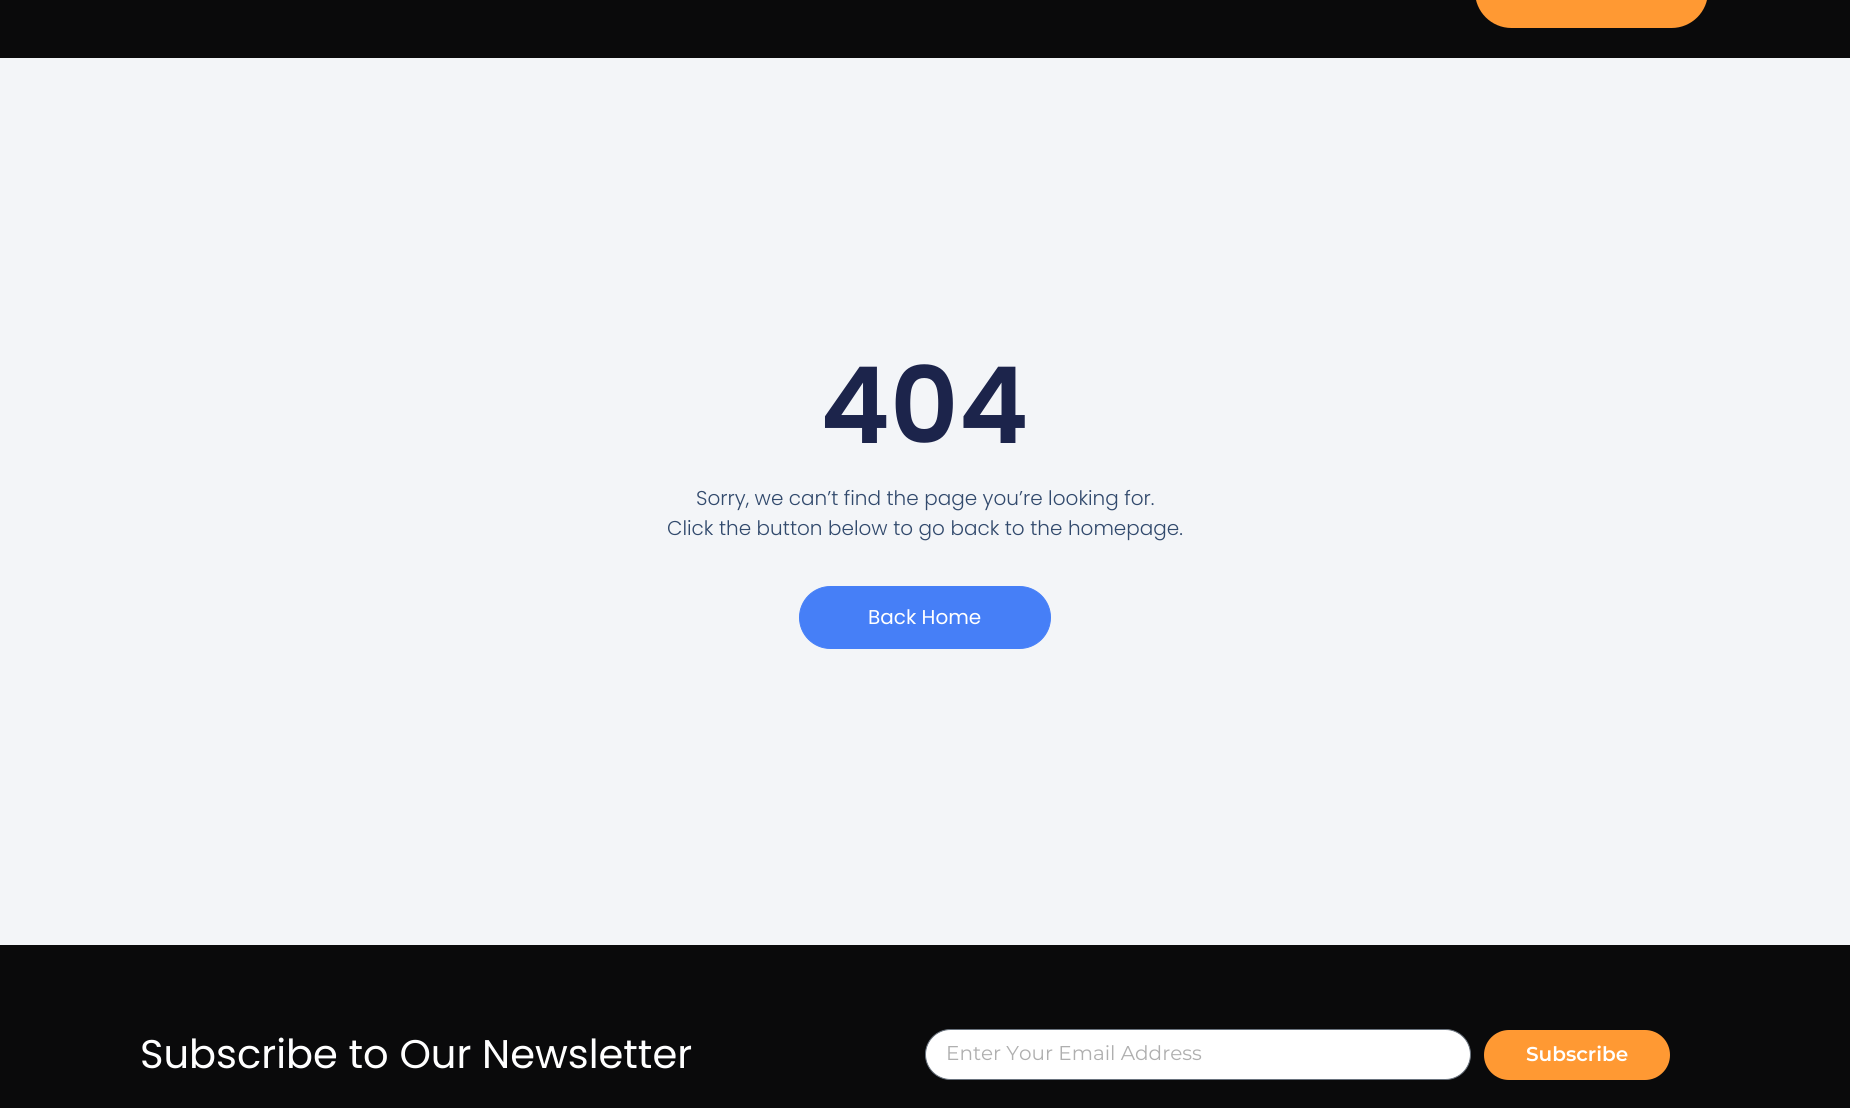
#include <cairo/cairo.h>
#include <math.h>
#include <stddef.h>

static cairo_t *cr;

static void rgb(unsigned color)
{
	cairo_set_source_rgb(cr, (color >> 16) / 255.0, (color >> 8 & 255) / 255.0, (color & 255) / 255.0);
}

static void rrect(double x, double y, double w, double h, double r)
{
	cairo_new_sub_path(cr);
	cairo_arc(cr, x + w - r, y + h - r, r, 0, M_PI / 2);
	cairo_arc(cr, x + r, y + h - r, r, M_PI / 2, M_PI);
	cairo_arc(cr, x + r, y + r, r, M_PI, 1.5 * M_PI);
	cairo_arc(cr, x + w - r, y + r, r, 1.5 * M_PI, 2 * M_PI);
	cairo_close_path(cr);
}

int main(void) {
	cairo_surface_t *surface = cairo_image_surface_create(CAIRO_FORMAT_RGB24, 1850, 1108);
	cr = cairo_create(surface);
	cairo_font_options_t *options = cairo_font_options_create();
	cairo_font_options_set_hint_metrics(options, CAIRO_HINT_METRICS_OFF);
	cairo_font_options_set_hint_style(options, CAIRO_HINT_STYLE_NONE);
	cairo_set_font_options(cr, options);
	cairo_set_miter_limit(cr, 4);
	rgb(0x0a0a0b);
	cairo_paint(cr);
	rgb(0xff9933);
	rrect(1475, -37, 233, 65, 36.5);
	cairo_fill(cr);
	rgb(0xf3f5f8);
	cairo_rectangle(cr, 0, 58, 1850, 887);
	cairo_fill(cr);
	rgb(0x467ff7);
	rrect(799.5, 586.5, 251, 62, 31);
	cairo_fill_preserve(cr);
	cairo_set_line_width(cr, 1);
	cairo_stroke(cr);
	rgb(0xffffff);
	rrect(925.5, 1029.5, 545, 50, 25);
	cairo_fill_preserve(cr);
	rgb(0x69727d);
	cairo_stroke(cr);
	rgb(0xff9933);
	rrect(1484, 1030, 186, 50, 25);
	cairo_fill(cr);
	cairo_select_font_face(cr, "Poppins SemiBold", CAIRO_FONT_SLANT_NORMAL, CAIRO_FONT_WEIGHT_NORMAL);
	cairo_set_font_size(cr, 106);
	rgb(0x1c244b);
	cairo_move_to(cr, 820, 443);
	cairo_show_text(cr, "404");
	cairo_select_font_face(cr, "Poppins Light", CAIRO_FONT_SLANT_NORMAL, CAIRO_FONT_WEIGHT_NORMAL);
	cairo_set_font_size(cr, 20);
	rgb(0x324a6d);
	cairo_move_to(cr, 696, 505);
	cairo_show_text(cr, "Sorry, we can’t find the page you’re looking for.");
	cairo_move_to(cr, 667, 535);
	cairo_show_text(cr, "Click the button below to go back to the homepage.");
	cairo_select_font_face(cr, "Poppins", CAIRO_FONT_SLANT_NORMAL, CAIRO_FONT_WEIGHT_NORMAL);
	rgb(0xffffff);
	cairo_move_to(cr, 868, 624);
	cairo_show_text(cr, "Back Home");
	cairo_set_font_size(cr, 40);
	cairo_move_to(cr, 140, 1068);
	cairo_show_text(cr, "Subscribe to Our Newsletter");
	cairo_select_font_face(cr, "Montserrat", CAIRO_FONT_SLANT_NORMAL, CAIRO_FONT_WEIGHT_NORMAL);
	cairo_set_font_size(cr, 20);
	rgb(0xafafaf);
	cairo_move_to(cr, 946, 1060);
	cairo_show_text(cr, "Enter Your Email Address");
	cairo_select_font_face(cr, "Montserrat SemiBold", CAIRO_FONT_SLANT_NORMAL, CAIRO_FONT_WEIGHT_NORMAL);
	rgb(0xffffff);
	cairo_move_to(cr, 1526, 1061);
	cairo_show_text(cr, "Subscribe");
	cairo_surface_write_to_png(surface, "page.png");
	cairo_font_options_destroy(options);
	cairo_destroy(cr);
	cairo_surface_destroy(surface);
	return 0;
}
